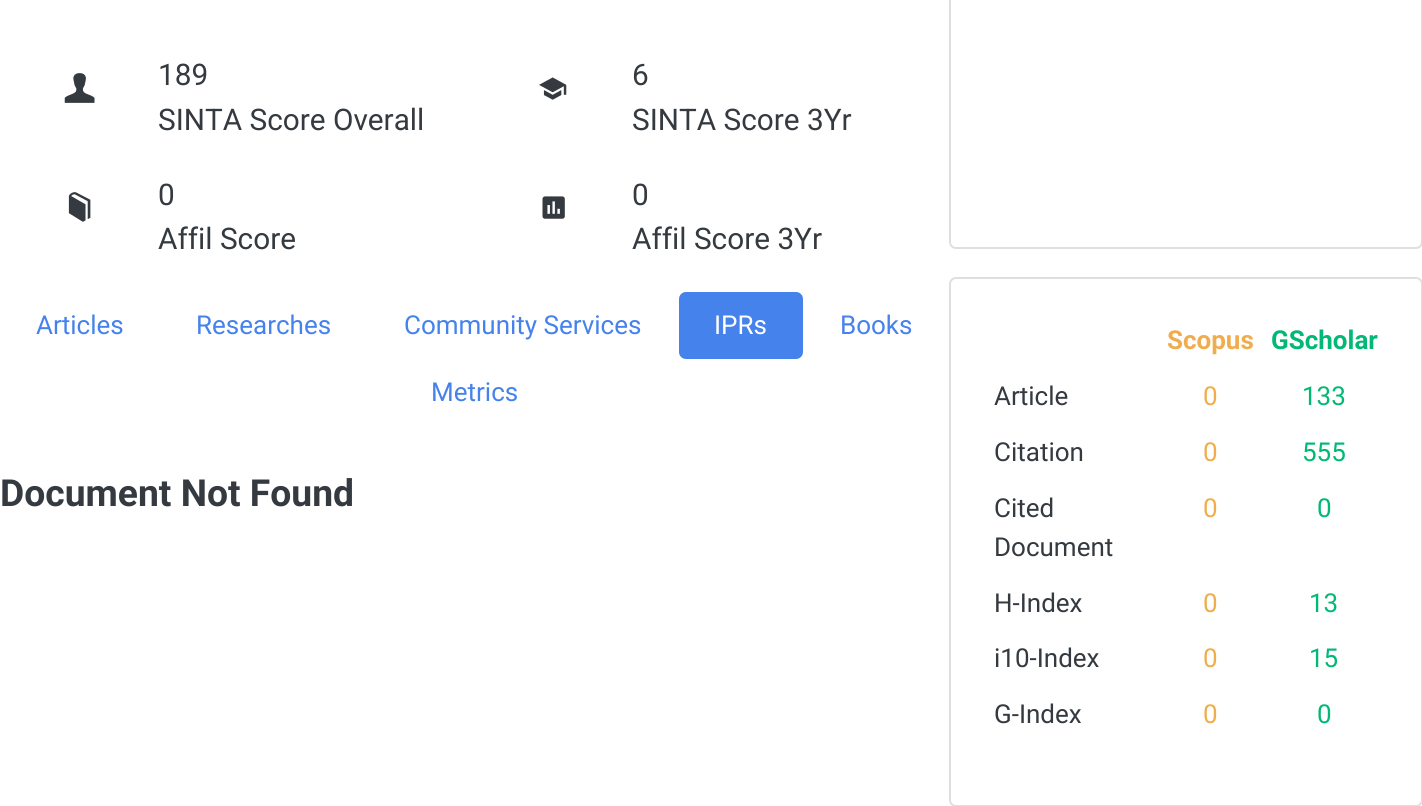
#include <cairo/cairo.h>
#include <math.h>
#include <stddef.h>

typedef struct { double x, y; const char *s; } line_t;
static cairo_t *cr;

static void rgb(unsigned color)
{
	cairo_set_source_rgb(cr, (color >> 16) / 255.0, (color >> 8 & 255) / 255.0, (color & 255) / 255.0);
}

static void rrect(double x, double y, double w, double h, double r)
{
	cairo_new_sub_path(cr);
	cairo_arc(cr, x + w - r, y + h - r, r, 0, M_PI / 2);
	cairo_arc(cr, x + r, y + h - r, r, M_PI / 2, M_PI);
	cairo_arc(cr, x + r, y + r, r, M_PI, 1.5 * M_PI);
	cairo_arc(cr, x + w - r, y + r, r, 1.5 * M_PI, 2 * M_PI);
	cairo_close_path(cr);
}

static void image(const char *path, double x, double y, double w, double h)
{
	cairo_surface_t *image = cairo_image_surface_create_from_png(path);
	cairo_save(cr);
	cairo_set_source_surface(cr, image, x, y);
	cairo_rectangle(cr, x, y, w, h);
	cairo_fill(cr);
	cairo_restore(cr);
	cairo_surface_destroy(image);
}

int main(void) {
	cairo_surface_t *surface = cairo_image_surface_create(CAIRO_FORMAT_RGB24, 1422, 806);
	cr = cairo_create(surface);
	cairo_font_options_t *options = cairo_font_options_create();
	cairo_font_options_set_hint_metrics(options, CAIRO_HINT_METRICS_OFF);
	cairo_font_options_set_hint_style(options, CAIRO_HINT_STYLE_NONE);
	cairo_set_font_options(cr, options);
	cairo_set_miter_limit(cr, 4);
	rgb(0xffffff);
	cairo_paint(cr);
	image("img/1.png", 64, 73, 31, 30);
	image("img/2.png", 539, 77, 28, 23);
	image("img/3.png", 68, 192, 23, 30);
	image("img/4.png", 542, 196, 23, 23);
	rgb(0x4582ec);
	rrect(679, 292, 124, 67, 7);
	cairo_fill(cr);
	rrect(950, -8, 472, 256, 6);
	rgb(0xdfdfdf);
	cairo_stroke(cr);
	rrect(950, 278, 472, 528, 6);
	cairo_stroke(cr);
	cairo_select_font_face(cr, "Roboto", CAIRO_FONT_SLANT_NORMAL, CAIRO_FONT_WEIGHT_NORMAL);
	cairo_set_font_size(cr, 29.75);
	rgb(0x343a40);
	{
		static const line_t items[] = {
			{158, 85, "189"},
			{158, 130, "SINTA Score Overall"},
			{632, 85, "6"},
			{632, 130, "SINTA Score 3Yr"},
			{158, 205, "0"},
			{158, 249, "Affil Score"},
			{632, 205, "0"},
			{632, 249, "Affil Score 3Yr"},
		};
		for (size_t i = 0; i < sizeof items / sizeof *items; i++) {
			cairo_move_to(cr, items[i].x, items[i].y);
			cairo_show_text(cr, items[i].s);
		}
	}
	cairo_set_font_size(cr, 26);
	rgb(0x4582ec);
	{
		static const line_t items[] = {
			{36, 334, "Articles"},
			{196, 334, "Researches"},
			{404, 334, "Community Services"},
		};
		for (size_t i = 0; i < sizeof items / sizeof *items; i++) {
			cairo_move_to(cr, items[i].x, items[i].y);
			cairo_show_text(cr, items[i].s);
		}
	}
	rgb(0xffffff);
	cairo_move_to(cr, 714, 334);
	cairo_show_text(cr, "IPRs");
	rgb(0x4582ec);
	cairo_move_to(cr, 840, 334);
	cairo_show_text(cr, "Books");
	cairo_move_to(cr, 431, 401);
	cairo_show_text(cr, "Metrics");
	cairo_select_font_face(cr, "Roboto", CAIRO_FONT_SLANT_NORMAL, CAIRO_FONT_WEIGHT_BOLD);
	cairo_set_font_size(cr, 37.25);
	rgb(0x343a40);
	cairo_move_to(cr, 0, 506);
	cairo_show_text(cr, "Document Not Found");
	cairo_set_font_size(cr, 26);
	rgb(0xf0ad4e);
	cairo_move_to(cr, 1167, 349);
	cairo_show_text(cr, "Scopus");
	rgb(0x02b875);
	cairo_move_to(cr, 1271, 349);
	cairo_show_text(cr, "GScholar");
	cairo_select_font_face(cr, "Roboto", CAIRO_FONT_SLANT_NORMAL, CAIRO_FONT_WEIGHT_NORMAL);
	rgb(0x343a40);
	cairo_move_to(cr, 994, 405);
	cairo_show_text(cr, "Article");
	rgb(0xf0ad4e);
	cairo_move_to(cr, 1203, 405);
	cairo_show_text(cr, "0");
	rgb(0x02b875);
	cairo_move_to(cr, 1302, 405);
	cairo_show_text(cr, "133");
	rgb(0x343a40);
	cairo_move_to(cr, 994, 461);
	cairo_show_text(cr, "Citation");
	rgb(0xf0ad4e);
	cairo_move_to(cr, 1203, 461);
	cairo_show_text(cr, "0");
	rgb(0x02b875);
	cairo_move_to(cr, 1302, 461);
	cairo_show_text(cr, "555");
	rgb(0x343a40);
	cairo_move_to(cr, 994, 517);
	cairo_show_text(cr, "Cited");
	cairo_move_to(cr, 994, 556);
	cairo_show_text(cr, "Document");
	rgb(0xf0ad4e);
	cairo_move_to(cr, 1203, 517);
	cairo_show_text(cr, "0");
	rgb(0x02b875);
	cairo_move_to(cr, 1317, 517);
	cairo_show_text(cr, "0");
	rgb(0x343a40);
	cairo_move_to(cr, 994, 612);
	cairo_show_text(cr, "H-Index");
	rgb(0xf0ad4e);
	cairo_move_to(cr, 1203, 612);
	cairo_show_text(cr, "0");
	rgb(0x02b875);
	cairo_move_to(cr, 1309, 612);
	cairo_show_text(cr, "13");
	rgb(0x343a40);
	cairo_move_to(cr, 994, 667);
	cairo_show_text(cr, "i10-Index");
	rgb(0xf0ad4e);
	cairo_move_to(cr, 1203, 667);
	cairo_show_text(cr, "0");
	rgb(0x02b875);
	cairo_move_to(cr, 1309, 667);
	cairo_show_text(cr, "15");
	rgb(0x343a40);
	cairo_move_to(cr, 994, 723);
	cairo_show_text(cr, "G-Index");
	rgb(0xf0ad4e);
	cairo_move_to(cr, 1203, 723);
	cairo_show_text(cr, "0");
	rgb(0x02b875);
	cairo_move_to(cr, 1317, 723);
	cairo_show_text(cr, "0");
	cairo_surface_write_to_png(surface, "page.png");
	cairo_font_options_destroy(options);
	cairo_destroy(cr);
	cairo_surface_destroy(surface);
	return 0;
}
